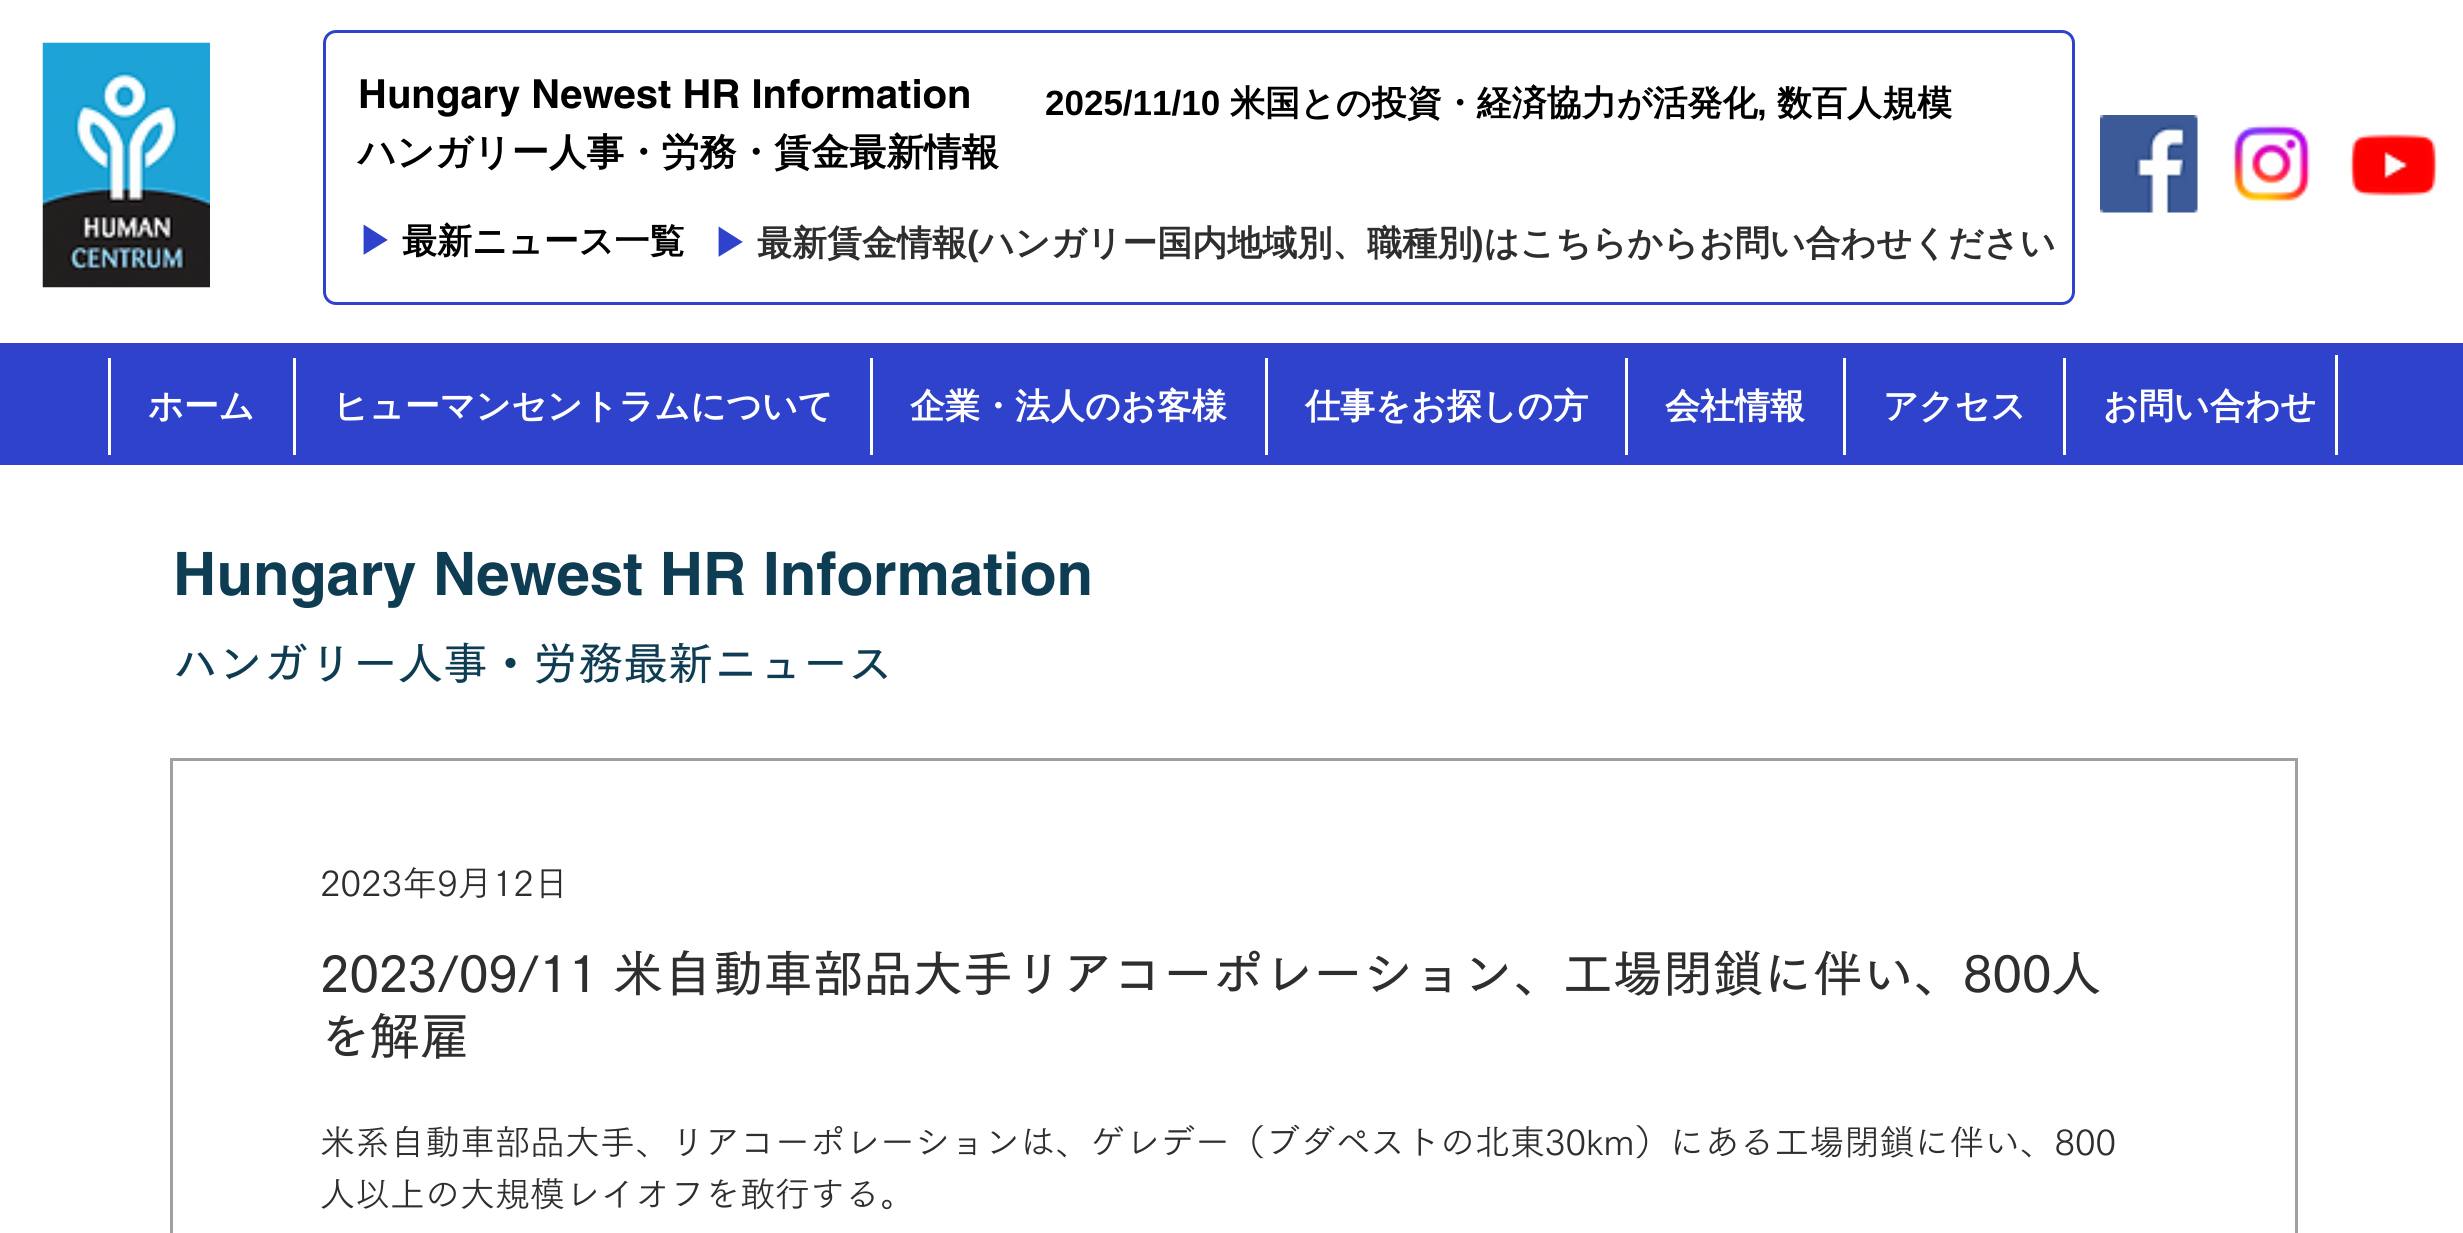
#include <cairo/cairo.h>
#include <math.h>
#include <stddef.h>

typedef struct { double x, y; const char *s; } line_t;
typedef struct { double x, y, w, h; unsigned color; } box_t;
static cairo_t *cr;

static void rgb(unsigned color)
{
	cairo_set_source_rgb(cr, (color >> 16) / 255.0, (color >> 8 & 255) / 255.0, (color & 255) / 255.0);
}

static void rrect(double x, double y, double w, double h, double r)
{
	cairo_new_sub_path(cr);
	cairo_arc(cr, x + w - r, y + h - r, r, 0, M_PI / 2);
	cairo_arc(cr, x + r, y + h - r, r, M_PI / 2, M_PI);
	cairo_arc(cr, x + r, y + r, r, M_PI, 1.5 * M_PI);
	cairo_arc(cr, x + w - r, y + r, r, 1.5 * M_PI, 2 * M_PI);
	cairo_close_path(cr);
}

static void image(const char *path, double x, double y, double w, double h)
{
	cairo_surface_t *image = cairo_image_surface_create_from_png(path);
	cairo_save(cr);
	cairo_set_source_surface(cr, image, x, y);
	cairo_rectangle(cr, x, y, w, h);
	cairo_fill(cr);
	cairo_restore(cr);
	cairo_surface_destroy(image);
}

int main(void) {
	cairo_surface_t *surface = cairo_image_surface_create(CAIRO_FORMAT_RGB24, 2463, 1233);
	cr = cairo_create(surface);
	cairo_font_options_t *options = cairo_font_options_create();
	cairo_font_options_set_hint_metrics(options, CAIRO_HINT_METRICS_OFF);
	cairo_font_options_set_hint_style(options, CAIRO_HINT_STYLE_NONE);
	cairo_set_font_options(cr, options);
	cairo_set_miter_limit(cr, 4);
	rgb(0xffffff);
	cairo_paint(cr);
	image("img/1.png", 42, 42, 168, 246);
	rrect(324.5, 31.5, 1749, 272, 11.5);
	rgb(0x2e42cb);
	cairo_set_line_width(cr, 3);
	cairo_stroke(cr);
	image("img/2.png", 2100, 115, 98, 98);
	image("img/3.png", 2232, 124, 79, 79);
	image("img/4.png", 2349, 134, 89, 62);
	{
		static const box_t items[] = {
			{0, 343, 2463, 122, 0x2e42cb},
			{108, 358, 3, 97, 0xffffff},
			{293, 358, 3, 97, 0xffffff},
			{870, 358, 3, 97, 0xffffff},
			{1265, 358, 3, 97, 0xffffff},
			{1625, 358, 3, 97, 0xffffff},
			{1843, 358, 3, 97, 0xffffff},
			{2063, 358, 3, 97, 0xffffff},
			{2335, 355, 3, 100, 0xffffff},
		};
		for (size_t i = 0; i < sizeof items / sizeof *items; i++) {
			rgb(items[i].color);
			cairo_rectangle(cr, items[i].x, items[i].y, items[i].w, items[i].h);
			cairo_fill(cr);
		}
	}
	cairo_rectangle(cr, 171.5, 759.5, 2125, 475);
	rgb(0xa0a09f);
	cairo_stroke(cr);
	cairo_select_font_face(cr, "helvetica", CAIRO_FONT_SLANT_NORMAL, CAIRO_FONT_WEIGHT_BOLD);
	cairo_set_font_size(cr, 40);
	rgb(0x000000);
	cairo_move_to(cr, 358, 108);
	cairo_show_text(cr, "Hungary Newest HR Information");
	cairo_select_font_face(cr, "Liberation Sans", CAIRO_FONT_SLANT_NORMAL, CAIRO_FONT_WEIGHT_BOLD);
	cairo_set_font_size(cr, 35);
	cairo_move_to(cr, 1045, 115);
	cairo_show_text(cr, "2025/11/10");
	cairo_select_font_face(cr, "WenQuanYi Zen Hei", CAIRO_FONT_SLANT_NORMAL, CAIRO_FONT_WEIGHT_BOLD);
	cairo_move_to(cr, 1230, 115);
	cairo_show_text(cr, "米国との投資・経済協力が活発化");
	cairo_select_font_face(cr, "Liberation Sans", CAIRO_FONT_SLANT_NORMAL, CAIRO_FONT_WEIGHT_BOLD);
	cairo_move_to(cr, 1757, 115);
	cairo_show_text(cr, ",");
	cairo_select_font_face(cr, "WenQuanYi Zen Hei", CAIRO_FONT_SLANT_NORMAL, CAIRO_FONT_WEIGHT_BOLD);
	cairo_move_to(cr, 1777, 115);
	cairo_show_text(cr, "数百人規模");
	cairo_set_font_size(cr, 37.5);
	cairo_move_to(cr, 358, 165);
	cairo_show_text(cr, "ハンガリー人事・労務・賃金最新情報");
	cairo_set_font_size(cr, 35);
	rgb(0x2e42cb);
	cairo_move_to(cr, 358, 253);
	cairo_show_text(cr, "▶");
	rgb(0x000000);
	cairo_move_to(cr, 402, 253);
	cairo_show_text(cr, "最新ニュース一覧");
	rgb(0x2e42cb);
	cairo_move_to(cr, 713, 255);
	cairo_show_text(cr, "▶");
	rgb(0x2f2e2e);
	cairo_move_to(cr, 757, 255);
	cairo_show_text(cr, "最新賃金情報");
	cairo_select_font_face(cr, "Liberation Sans", CAIRO_FONT_SLANT_NORMAL, CAIRO_FONT_WEIGHT_BOLD);
	cairo_move_to(cr, 967, 255);
	cairo_show_text(cr, "(");
	cairo_select_font_face(cr, "WenQuanYi Zen Hei", CAIRO_FONT_SLANT_NORMAL, CAIRO_FONT_WEIGHT_BOLD);
	cairo_move_to(cr, 979, 255);
	cairo_show_text(cr, "ハンガリー国内地域別、職種別");
	cairo_select_font_face(cr, "Liberation Sans", CAIRO_FONT_SLANT_NORMAL, CAIRO_FONT_WEIGHT_BOLD);
	cairo_move_to(cr, 1472, 255);
	cairo_show_text(cr, ")");
	cairo_select_font_face(cr, "WenQuanYi Zen Hei", CAIRO_FONT_SLANT_NORMAL, CAIRO_FONT_WEIGHT_BOLD);
	cairo_move_to(cr, 1484, 255);
	cairo_show_text(cr, "はこちらからお問い合わせください");
	rgb(0xffffff);
	{
		static const line_t items[] = {
			{148, 418, "ホーム"},
			{333, 418, "ヒューマンセントラムについて"},
			{910, 418, "企業・法人のお客様"},
			{1305, 418, "仕事をお探しの方"},
			{1665, 418, "会社情報"},
			{1883, 418, "アクセス"},
			{2103, 418, "お問い合わせ"},
		};
		for (size_t i = 0; i < sizeof items / sizeof *items; i++) {
			cairo_move_to(cr, items[i].x, items[i].y);
			cairo_show_text(cr, items[i].s);
		}
	}
	cairo_select_font_face(cr, "helvetica", CAIRO_FONT_SLANT_NORMAL, CAIRO_FONT_WEIGHT_BOLD);
	cairo_set_font_size(cr, 60);
	rgb(0x0e3c53);
	cairo_move_to(cr, 173, 595);
	cairo_show_text(cr, "Hungary Newest HR Information");
	cairo_select_font_face(cr, "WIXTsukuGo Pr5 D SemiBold", CAIRO_FONT_SLANT_NORMAL, CAIRO_FONT_WEIGHT_NORMAL);
	cairo_set_font_size(cr, 45);
	cairo_move_to(cr, 173, 680);
	cairo_show_text(cr, "ハンガリー人事・労務最新ニュース");
	cairo_select_font_face(cr, "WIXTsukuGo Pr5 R", CAIRO_FONT_SLANT_NORMAL, CAIRO_FONT_WEIGHT_NORMAL);
	cairo_set_font_size(cr, 35);
	rgb(0x2f2e2e);
	cairo_move_to(cr, 320, 896);
	cairo_show_text(cr, "2023年9月12日");
	cairo_select_font_face(cr, "WIXTsukuGo Pr5 D SemiBold", CAIRO_FONT_SLANT_NORMAL, CAIRO_FONT_WEIGHT_NORMAL);
	cairo_set_font_size(cr, 50);
	cairo_move_to(cr, 320, 992);
	cairo_show_text(cr, "2023/09/11 米自動車部品大手リアコーポレーション、工場閉鎖に伴い、800人");
	cairo_move_to(cr, 320, 1055);
	cairo_show_text(cr, "を解雇");
	cairo_select_font_face(cr, "WIXTsukuGo Pr5 R", CAIRO_FONT_SLANT_NORMAL, CAIRO_FONT_WEIGHT_NORMAL);
	cairo_set_font_size(cr, 35);
	cairo_move_to(cr, 320, 1155);
	cairo_show_text(cr, "米系自動車部品大手、リアコーポレーションは、ゲレデー（ブダペストの北東30km）にある工場閉鎖に伴い、800");
	cairo_move_to(cr, 320, 1207);
	cairo_show_text(cr, "人以上の大規模レイオフを敢行する。");
	cairo_surface_write_to_png(surface, "page.png");
	cairo_font_options_destroy(options);
	cairo_destroy(cr);
	cairo_surface_destroy(surface);
	return 0;
}
